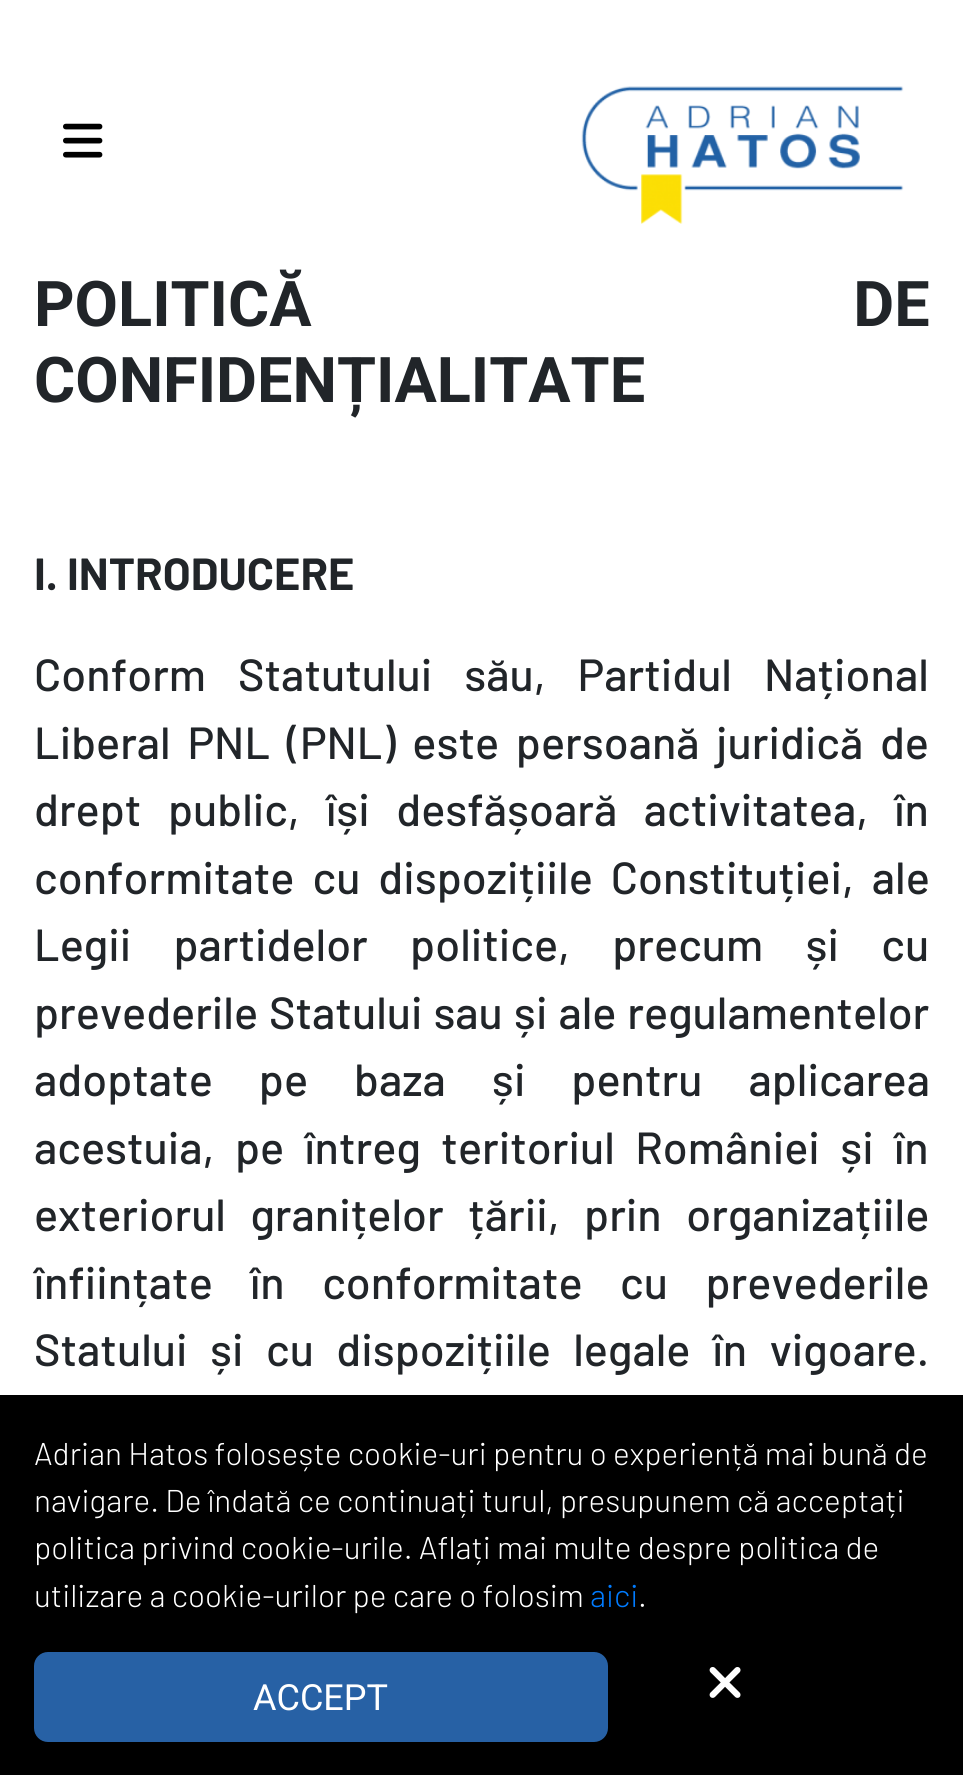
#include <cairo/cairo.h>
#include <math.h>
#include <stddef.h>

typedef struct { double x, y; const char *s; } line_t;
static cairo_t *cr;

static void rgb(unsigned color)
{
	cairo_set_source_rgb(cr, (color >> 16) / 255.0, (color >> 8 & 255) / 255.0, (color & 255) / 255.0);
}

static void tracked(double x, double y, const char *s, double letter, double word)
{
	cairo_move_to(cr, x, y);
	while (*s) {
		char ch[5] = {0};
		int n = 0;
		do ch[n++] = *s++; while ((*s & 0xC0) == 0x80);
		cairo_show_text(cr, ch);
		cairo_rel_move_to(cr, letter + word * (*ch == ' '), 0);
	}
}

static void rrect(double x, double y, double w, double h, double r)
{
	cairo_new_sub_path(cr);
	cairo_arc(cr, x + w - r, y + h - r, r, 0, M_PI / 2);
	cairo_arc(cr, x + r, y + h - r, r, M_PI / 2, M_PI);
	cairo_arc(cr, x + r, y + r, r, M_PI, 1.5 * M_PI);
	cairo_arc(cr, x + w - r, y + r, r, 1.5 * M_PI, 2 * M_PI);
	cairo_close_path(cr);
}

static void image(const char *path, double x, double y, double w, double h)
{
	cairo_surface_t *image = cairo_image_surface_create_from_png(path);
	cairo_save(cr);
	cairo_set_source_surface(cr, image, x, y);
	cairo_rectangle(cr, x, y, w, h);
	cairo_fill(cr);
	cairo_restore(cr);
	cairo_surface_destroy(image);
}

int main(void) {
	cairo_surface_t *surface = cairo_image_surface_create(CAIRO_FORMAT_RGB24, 963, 1775);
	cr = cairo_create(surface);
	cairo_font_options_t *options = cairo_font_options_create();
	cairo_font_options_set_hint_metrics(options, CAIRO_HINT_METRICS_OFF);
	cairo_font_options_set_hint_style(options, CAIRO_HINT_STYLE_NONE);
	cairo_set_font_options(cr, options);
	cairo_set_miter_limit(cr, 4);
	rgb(0xffffff);
	cairo_paint(cr);
	image("img/1.png", 63, 123, 40, 35);
	image("img/2.png", 581, 86, 323, 138);
	rgb(0x000000);
	cairo_rectangle(cr, 0, 1395, 963, 380);
	cairo_fill(cr);
	rgb(0x2761a5);
	rrect(35, 1653, 572, 88, 13);
	cairo_fill_preserve(cr);
	cairo_stroke(cr);
	image("img/3.png", 709, 1667, 32, 31);
	cairo_select_font_face(cr, "Roboto", CAIRO_FONT_SLANT_NORMAL, CAIRO_FONT_WEIGHT_BOLD);
	cairo_set_font_size(cr, 63);
	rgb(0x212529);
	tracked(34, 326, "POLITICĂ DE", 0, 526);
	cairo_move_to(cr, 34, 402);
	cairo_show_text(cr, "CONFIDENȚIALITATE");
	cairo_select_font_face(cr, "Barlow", CAIRO_FONT_SLANT_NORMAL, CAIRO_FONT_WEIGHT_BOLD);
	cairo_set_font_size(cr, 45);
	cairo_move_to(cr, 34, 590);
	cairo_show_text(cr, "I. INTRODUCERE");
	cairo_select_font_face(cr, "Barlow Medium", CAIRO_FONT_SLANT_NORMAL, CAIRO_FONT_WEIGHT_NORMAL);
	tracked(34, 691, "Conform Statutului său, Partidul Național", 0, 23);
	tracked(34, 759, "Liberal PNL (PNL) este persoană juridică de", 0, 7.75);
	tracked(34, 826, "drept public, își desfășoară activitatea, în", 0, 17.5);
	tracked(34, 894, "conformitate cu dispozițiile Constituției, ale", 0, 9);
	tracked(34, 961, "Legii partidelor politice, precum și cu", 0, 33.25);
	tracked(34, 1029, "prevederile Statului sau și ale regulamentelor", 0, 2);
	tracked(34, 1096, "adoptate pe baza și pentru aplicarea", 0, 37);
	tracked(34, 1164, "acestuia, pe întreg teritoriul României și în", 0, 11.5);
	tracked(34, 1231, "exteriorul granițelor țării, prin organizațiile", 0, 15.5);
	tracked(34, 1299, "înființate în conformitate cu prevederile", 0, 28.5);
	tracked(34, 1366, "Statului și cu dispozițiile legale în vigoare.", 0, 13.5);
	cairo_select_font_face(cr, "Barlow Light", CAIRO_FONT_SLANT_NORMAL, CAIRO_FONT_WEIGHT_NORMAL);
	cairo_set_font_size(cr, 31.5);
	rgb(0xffffff);
	{
		static const line_t items[] = {
			{34, 1465, "Adrian Hatos folosește cookie-uri pentru o experiență mai bună de"},
			{34, 1512, "navigare. De îndată ce continuați turul, presupunem că acceptați"},
			{34, 1559, "politica privind cookie-urile. Aflați mai multe despre politica de"},
			{34, 1607, "utilizare a cookie-urilor pe care o folosim"},
		};
		for (size_t i = 0; i < sizeof items / sizeof *items; i++) {
			cairo_move_to(cr, items[i].x, items[i].y);
			cairo_show_text(cr, items[i].s);
		}
	}
	rgb(0x007bff);
	cairo_move_to(cr, 590, 1607);
	cairo_show_text(cr, "aici");
	rgb(0xffffff);
	cairo_move_to(cr, 638, 1607);
	cairo_show_text(cr, ".");
	cairo_select_font_face(cr, "Roboto", CAIRO_FONT_SLANT_NORMAL, CAIRO_FONT_WEIGHT_NORMAL);
	cairo_set_font_size(cr, 36);
	cairo_move_to(cr, 253, 1710);
	cairo_show_text(cr, "ACCEPT");
	cairo_surface_write_to_png(surface, "page.png");
	cairo_font_options_destroy(options);
	cairo_destroy(cr);
	cairo_surface_destroy(surface);
	return 0;
}
